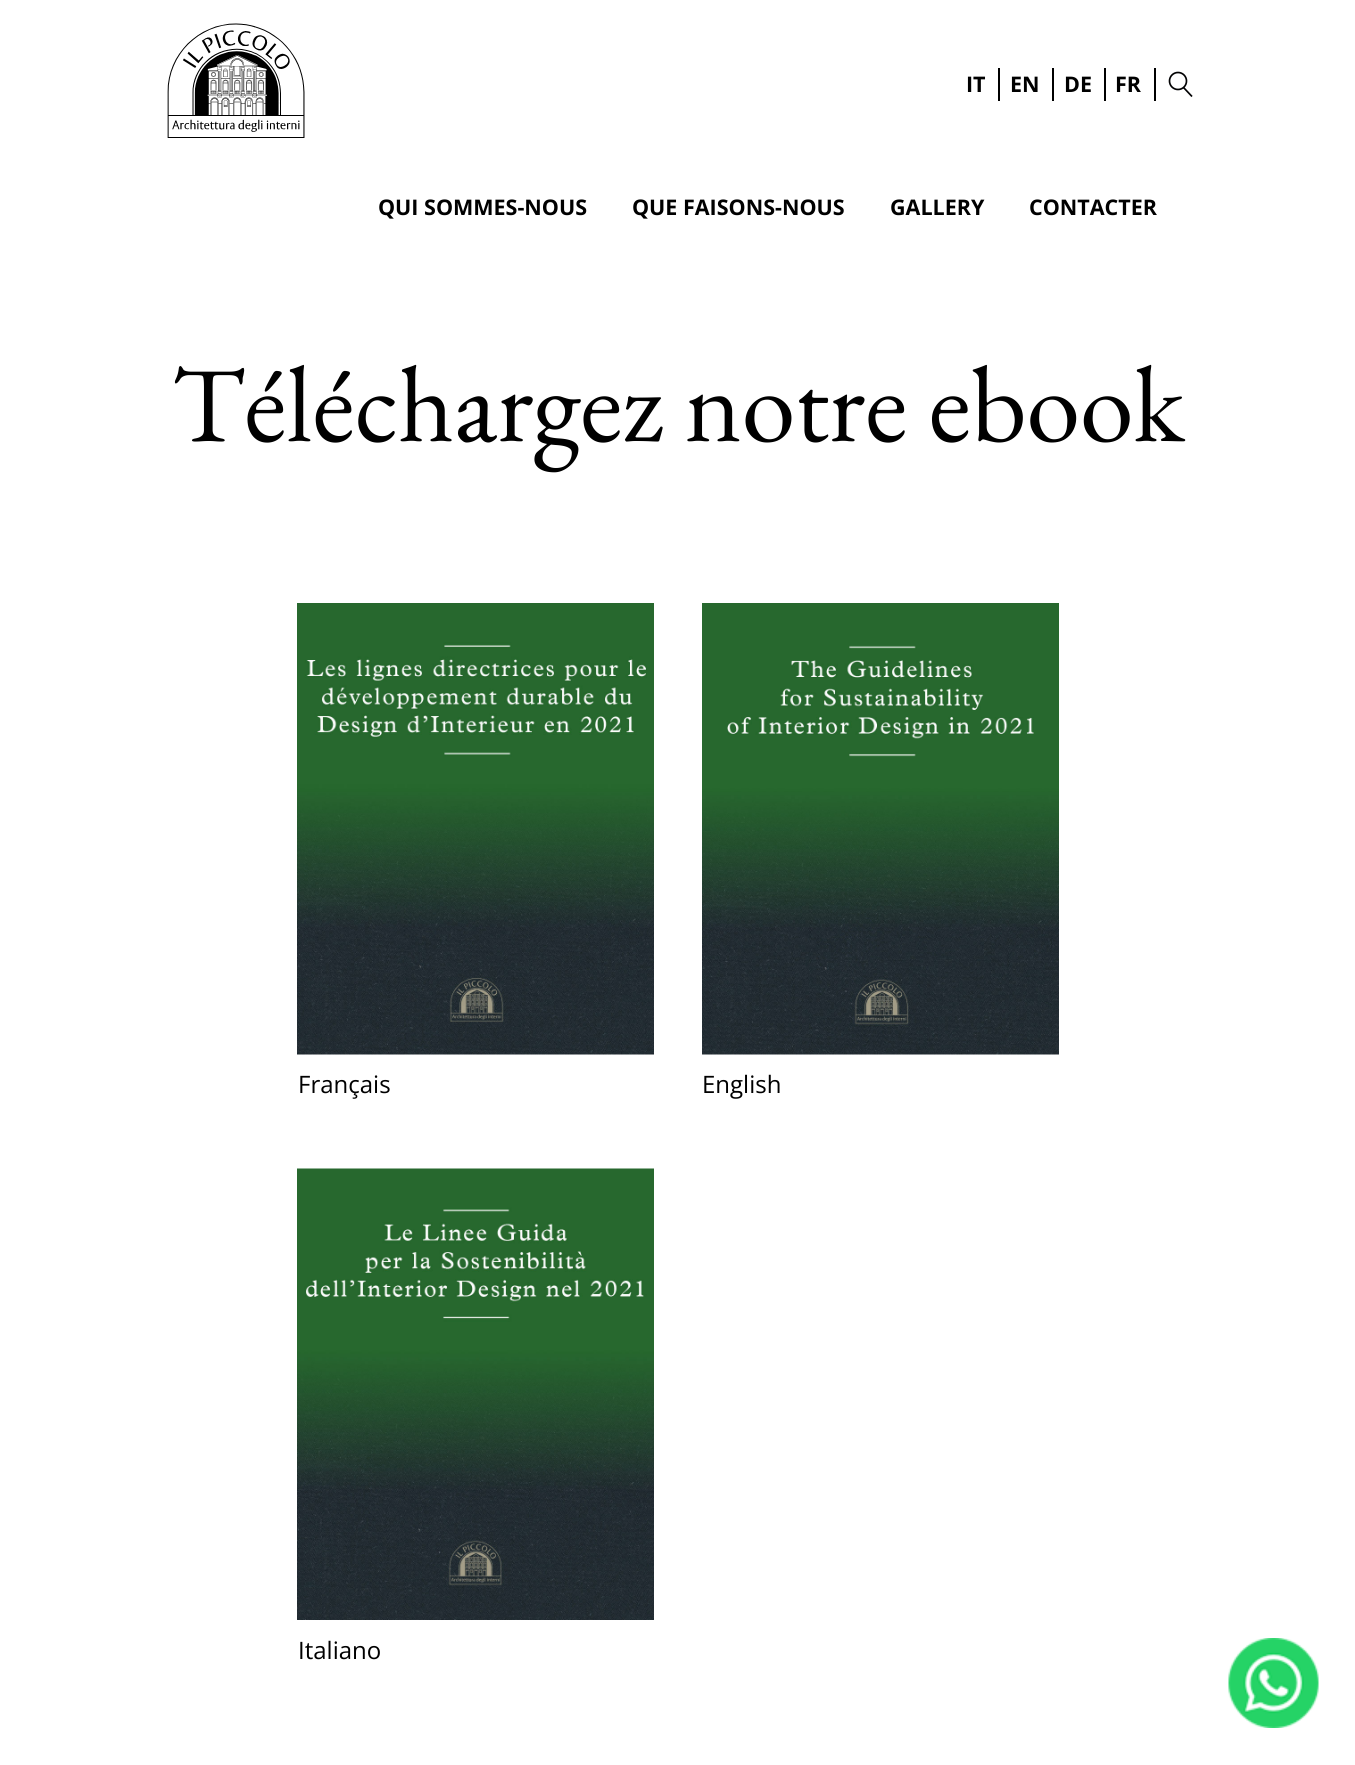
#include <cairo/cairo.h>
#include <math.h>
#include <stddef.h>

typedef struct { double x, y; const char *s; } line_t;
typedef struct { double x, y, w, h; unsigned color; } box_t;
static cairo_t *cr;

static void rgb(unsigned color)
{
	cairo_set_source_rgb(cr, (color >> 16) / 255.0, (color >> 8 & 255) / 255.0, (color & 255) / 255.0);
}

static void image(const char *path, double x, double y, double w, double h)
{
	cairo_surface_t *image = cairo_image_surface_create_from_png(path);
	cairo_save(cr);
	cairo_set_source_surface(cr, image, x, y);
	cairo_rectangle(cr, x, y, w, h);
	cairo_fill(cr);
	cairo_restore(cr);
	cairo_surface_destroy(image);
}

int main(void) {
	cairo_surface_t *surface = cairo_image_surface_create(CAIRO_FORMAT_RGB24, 1355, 1765);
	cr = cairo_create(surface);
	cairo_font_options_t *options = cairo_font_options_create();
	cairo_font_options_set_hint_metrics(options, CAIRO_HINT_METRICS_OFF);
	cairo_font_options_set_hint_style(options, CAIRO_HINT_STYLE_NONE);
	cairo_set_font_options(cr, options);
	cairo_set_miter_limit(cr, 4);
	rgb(0xffffff);
	cairo_paint(cr);
	image("img/1.png", 167, 23, 138, 115);
	{
		static const box_t items[] = {
			{998, 68, 2, 33, 0x000000},
			{1052, 68, 2, 33, 0x000000},
			{1104, 68, 2, 33, 0x000000},
			{1154, 68, 2, 33, 0x000000},
		};
		for (size_t i = 0; i < sizeof items / sizeof *items; i++) {
			rgb(items[i].color);
			cairo_rectangle(cr, items[i].x, items[i].y, items[i].w, items[i].h);
			cairo_fill(cr);
		}
	}
	cairo_new_path(cr);
	cairo_move_to(cr, 1183.5, 87.5);
	cairo_line_to(cr, 1192, 96.5);
	rgb(0x020203);
	cairo_set_line_width(cr, 1.7);
	cairo_stroke(cr);
	cairo_arc(cr, 1178, 81, 8.5, 0, 2 * M_PI);
	cairo_stroke(cr);
	image("img/2.png", 297, 603, 357, 452);
	image("img/3.png", 702, 603, 357, 452);
	image("img/4.png", 297, 1168, 357, 452);
	image("img/5.png", 1228, 1638, 91, 90);
	cairo_select_font_face(cr, "Open Sans", CAIRO_FONT_SLANT_NORMAL, CAIRO_FONT_WEIGHT_BOLD);
	cairo_set_font_size(cr, 21.5);
	rgb(0x000000);
	{
		static const line_t items[] = {
			{966, 92, "IT"},
			{1010, 92, "EN"},
			{1064, 92, "DE"},
			{1115, 92, "FR"},
			{378, 215, "QUI SOMMES-NOUS"},
			{632, 215, "QUE FAISONS-NOUS"},
			{890, 215, "GALLERY"},
			{1029, 215, "CONTACTER"},
		};
		for (size_t i = 0; i < sizeof items / sizeof *items; i++) {
			cairo_move_to(cr, items[i].x, items[i].y);
			cairo_show_text(cr, items[i].s);
		}
	}
	cairo_select_font_face(cr, "EB Garamond", CAIRO_FONT_SLANT_NORMAL, CAIRO_FONT_WEIGHT_NORMAL);
	cairo_set_font_size(cr, 108);
	cairo_move_to(cr, 172, 441);
	cairo_show_text(cr, "Téléchargez notre ebook");
	cairo_select_font_face(cr, "Open Sans", CAIRO_FONT_SLANT_NORMAL, CAIRO_FONT_WEIGHT_NORMAL);
	cairo_set_font_size(cr, 24);
	{
		static const line_t items[] = {
			{298, 1093, "Français"},
			{702, 1093, "English"},
			{298, 1659, "Italiano"},
		};
		for (size_t i = 0; i < sizeof items / sizeof *items; i++) {
			cairo_move_to(cr, items[i].x, items[i].y);
			cairo_show_text(cr, items[i].s);
		}
	}
	cairo_surface_write_to_png(surface, "page.png");
	cairo_font_options_destroy(options);
	cairo_destroy(cr);
	cairo_surface_destroy(surface);
	return 0;
}
